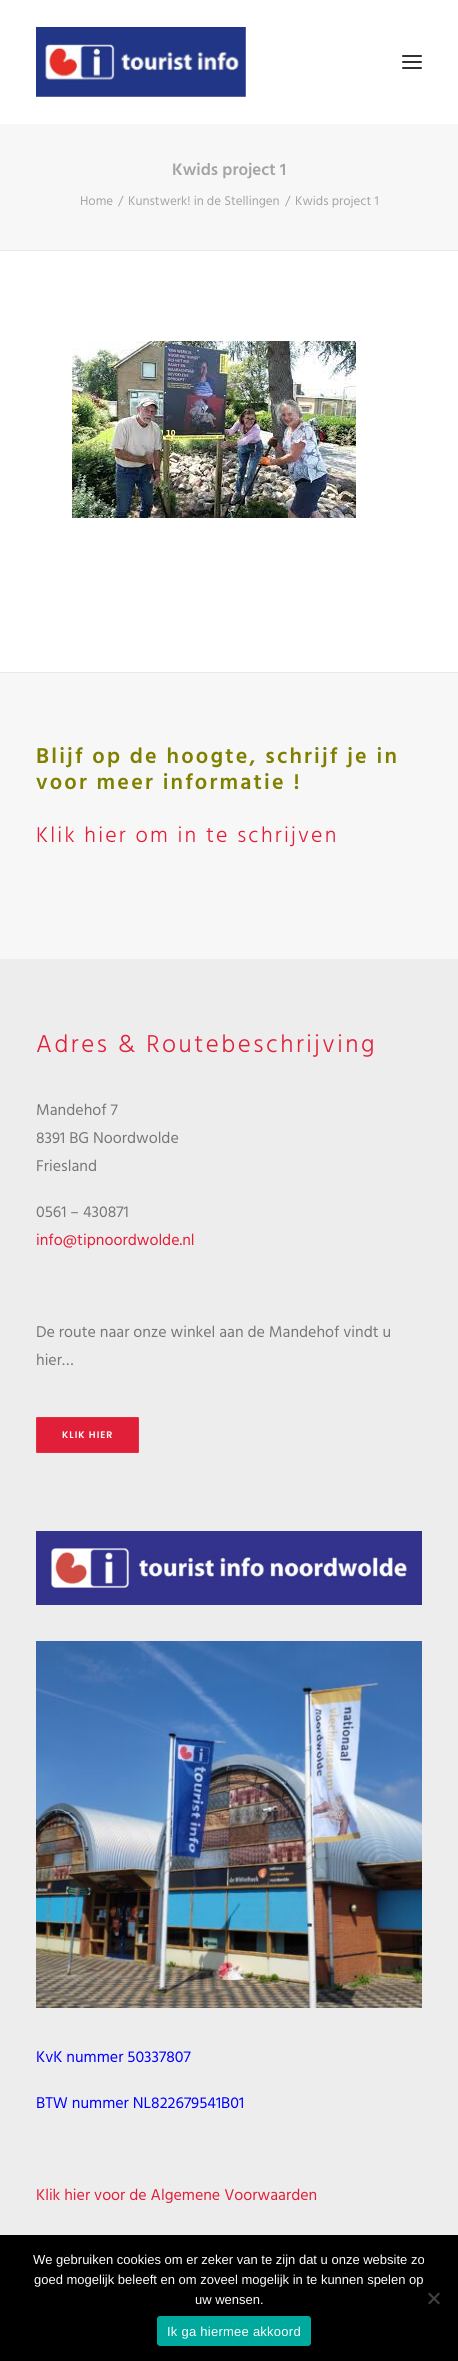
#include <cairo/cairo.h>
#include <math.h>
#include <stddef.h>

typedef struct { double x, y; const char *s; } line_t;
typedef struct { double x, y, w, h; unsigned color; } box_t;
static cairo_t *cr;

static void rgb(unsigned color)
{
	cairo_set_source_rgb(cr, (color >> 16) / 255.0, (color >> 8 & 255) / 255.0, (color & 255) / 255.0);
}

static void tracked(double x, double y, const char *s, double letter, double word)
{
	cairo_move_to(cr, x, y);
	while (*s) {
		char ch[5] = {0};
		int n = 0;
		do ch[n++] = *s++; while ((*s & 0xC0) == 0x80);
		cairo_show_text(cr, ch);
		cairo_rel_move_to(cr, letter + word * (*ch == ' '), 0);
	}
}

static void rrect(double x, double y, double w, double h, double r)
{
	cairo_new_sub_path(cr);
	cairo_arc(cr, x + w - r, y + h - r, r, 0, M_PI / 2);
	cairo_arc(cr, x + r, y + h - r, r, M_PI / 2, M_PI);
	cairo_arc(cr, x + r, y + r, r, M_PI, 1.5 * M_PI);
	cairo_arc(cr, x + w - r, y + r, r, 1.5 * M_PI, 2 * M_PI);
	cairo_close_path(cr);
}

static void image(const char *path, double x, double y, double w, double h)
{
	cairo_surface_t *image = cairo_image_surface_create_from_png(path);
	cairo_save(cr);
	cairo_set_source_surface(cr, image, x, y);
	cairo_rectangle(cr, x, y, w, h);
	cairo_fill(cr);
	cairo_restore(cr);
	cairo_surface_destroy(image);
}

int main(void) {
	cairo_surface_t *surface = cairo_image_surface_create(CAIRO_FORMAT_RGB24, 458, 2361);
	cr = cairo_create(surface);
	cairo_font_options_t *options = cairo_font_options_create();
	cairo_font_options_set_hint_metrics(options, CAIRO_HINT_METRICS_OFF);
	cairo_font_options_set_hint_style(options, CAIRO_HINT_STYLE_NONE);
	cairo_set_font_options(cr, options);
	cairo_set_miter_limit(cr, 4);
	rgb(0xededed);
	cairo_paint(cr);
	rgb(0xffffff);
	cairo_rectangle(cr, 0, 0, 458, 124);
	cairo_fill(cr);
	image("img/1.png", 36, 27, 210, 70);
	rgb(0x303133);
	rrect(402, 61, 20, 2, 1);
	cairo_fill(cr);
	rrect(402, 55, 20, 2, 1);
	cairo_fill(cr);
	rrect(402, 67, 20, 2, 1);
	cairo_fill(cr);
	{
		static const box_t items[] = {
			{0, 124, 458, 126, 0xf7f7f7},
			{0, 250, 458, 1, 0xeaeaea},
			{0, 251, 458, 421, 0xffffff},
		};
		for (size_t i = 0; i < sizeof items / sizeof *items; i++) {
			rgb(items[i].color);
			cairo_rectangle(cr, items[i].x, items[i].y, items[i].w, items[i].h);
			cairo_fill(cr);
		}
	}
	image("img/2.png", 72, 341, 284, 177);
	rgb(0xf7f7f7);
	cairo_rectangle(cr, 0, 673, 458, 286);
	cairo_fill(cr);
	rgb(0xeaeaea);
	cairo_rectangle(cr, 0, 672, 458, 1);
	cairo_fill(cr);
	rgb(0xe21f39);
	rrect(36.4, 1417.4, 102.2, 35.2, 1.1);
	cairo_fill_preserve(cr);
	cairo_set_line_width(cr, 0.8);
	cairo_stroke(cr);
	image("img/3.png", 36, 1531, 386, 74);
	image("img/4.png", 36, 1641, 386, 367);
	rgb(0x000000);
	cairo_rectangle(cr, 0, 2235, 458, 126);
	cairo_fill(cr);
	rgb(0x404040);
	cairo_new_path(cr);
	cairo_move_to(cr, 438.5, 2292.5);
	cairo_line_to(cr, 440, 2294);
	cairo_line_to(cr, 429.5, 2304.5);
	cairo_line_to(cr, 428, 2303);
	cairo_close_path(cr);
	cairo_fill(cr);
	cairo_new_path(cr);
	cairo_move_to(cr, 428, 2294);
	cairo_line_to(cr, 429.5, 2292.5);
	cairo_line_to(cr, 440, 2303);
	cairo_line_to(cr, 438.5, 2304.5);
	cairo_close_path(cr);
	cairo_fill(cr);
	rgb(0x00a99d);
	rrect(157, 2316, 154, 30, 3);
	cairo_fill(cr);
	cairo_select_font_face(cr, "Hind SemiBold", CAIRO_FONT_SLANT_NORMAL, CAIRO_FONT_WEIGHT_NORMAL);
	cairo_set_font_size(cr, 17);
	rgb(0xa4a4a4);
	cairo_move_to(cr, 172, 175);
	cairo_show_text(cr, "Kwids project 1");
	cairo_select_font_face(cr, "Hind", CAIRO_FONT_SLANT_NORMAL, CAIRO_FONT_WEIGHT_NORMAL);
	cairo_set_font_size(cr, 13);
	{
		static const line_t items[] = {
			{80, 205, "Home"},
			{118, 205, "/"},
			{128, 205, "Kunstwerk! in de Stellingen"},
			{285, 205, "/"},
			{295, 205, "Kwids project 1"},
		};
		for (size_t i = 0; i < sizeof items / sizeof *items; i++) {
			cairo_move_to(cr, items[i].x, items[i].y);
			cairo_show_text(cr, items[i].s);
		}
	}
	cairo_select_font_face(cr, "Hind SemiBold", CAIRO_FONT_SLANT_NORMAL, CAIRO_FONT_WEIGHT_NORMAL);
	cairo_set_font_size(cr, 22);
	rgb(0x808000);
	tracked(36, 763, "Blijf op de hoogte, schrijf je in", 2.2, 0);
	tracked(36, 789, "voor meer informatie !", 2.2, 0);
	cairo_select_font_face(cr, "Hind Light", CAIRO_FONT_SLANT_NORMAL, CAIRO_FONT_WEIGHT_NORMAL);
	rgb(0xe21f39);
	tracked(36, 842, "Klik hier om in te schrijven", 2.2, 0);
	cairo_set_font_size(cr, 25);
	tracked(36, 1052, "Adres & Routebeschrijving", 2.5, 0);
	cairo_select_font_face(cr, "Hind", CAIRO_FONT_SLANT_NORMAL, CAIRO_FONT_WEIGHT_NORMAL);
	cairo_set_font_size(cr, 16);
	rgb(0x777777);
	{
		static const line_t items[] = {
			{36, 1115, "Mandehof 7"},
			{36, 1143, "8391 BG Noordwolde"},
			{36, 1171, "Friesland"},
			{36, 1217, "0561 – 430871"},
		};
		for (size_t i = 0; i < sizeof items / sizeof *items; i++) {
			cairo_move_to(cr, items[i].x, items[i].y);
			cairo_show_text(cr, items[i].s);
		}
	}
	rgb(0xe21f39);
	cairo_move_to(cr, 36, 1245);
	cairo_show_text(cr, "info@tipnoordwolde.nl");
	rgb(0x777777);
	cairo_move_to(cr, 36, 1337);
	cairo_show_text(cr, "De route naar onze winkel aan de Mandehof vindt u");
	cairo_move_to(cr, 36, 1365);
	cairo_show_text(cr, "hier…");
	cairo_select_font_face(cr, "Poppins SemiBold", CAIRO_FONT_SLANT_NORMAL, CAIRO_FONT_WEIGHT_NORMAL);
	cairo_set_font_size(cr, 9.5);
	rgb(0xffffff);
	tracked(62, 1438, "KLIK HIER", 1, 0);
	cairo_select_font_face(cr, "Hind", CAIRO_FONT_SLANT_NORMAL, CAIRO_FONT_WEIGHT_NORMAL);
	cairo_set_font_size(cr, 16);
	rgb(0x0000ff);
	cairo_move_to(cr, 36, 2062);
	cairo_show_text(cr, "KvK nummer 50337807");
	cairo_move_to(cr, 36, 2108);
	cairo_show_text(cr, "BTW nummer NL822679541B01");
	rgb(0xe21f39);
	cairo_move_to(cr, 36, 2200);
	cairo_show_text(cr, "Klik hier voor de Algemene Voorwaarden");
	cairo_select_font_face(cr, "Liberation Sans", CAIRO_FONT_SLANT_NORMAL, CAIRO_FONT_WEIGHT_NORMAL);
	cairo_set_font_size(cr, 13);
	rgb(0xffffff);
	{
		static const line_t items[] = {
			{33, 2264, "We gebruiken cookies om er zeker van te zijn dat u onze website zo"},
			{34, 2284, "goed mogelijk beleeft en om zoveel mogelijk in te kunnen spelen op"},
			{195, 2304, "uw wensen."},
		};
		for (size_t i = 0; i < sizeof items / sizeof *items; i++) {
			cairo_move_to(cr, items[i].x, items[i].y);
			cairo_show_text(cr, items[i].s);
		}
	}
	tracked(167, 2336, "Ik ga hiermee akkoord", 0.25, 0);
	cairo_surface_write_to_png(surface, "page.png");
	cairo_font_options_destroy(options);
	cairo_destroy(cr);
	cairo_surface_destroy(surface);
	return 0;
}
